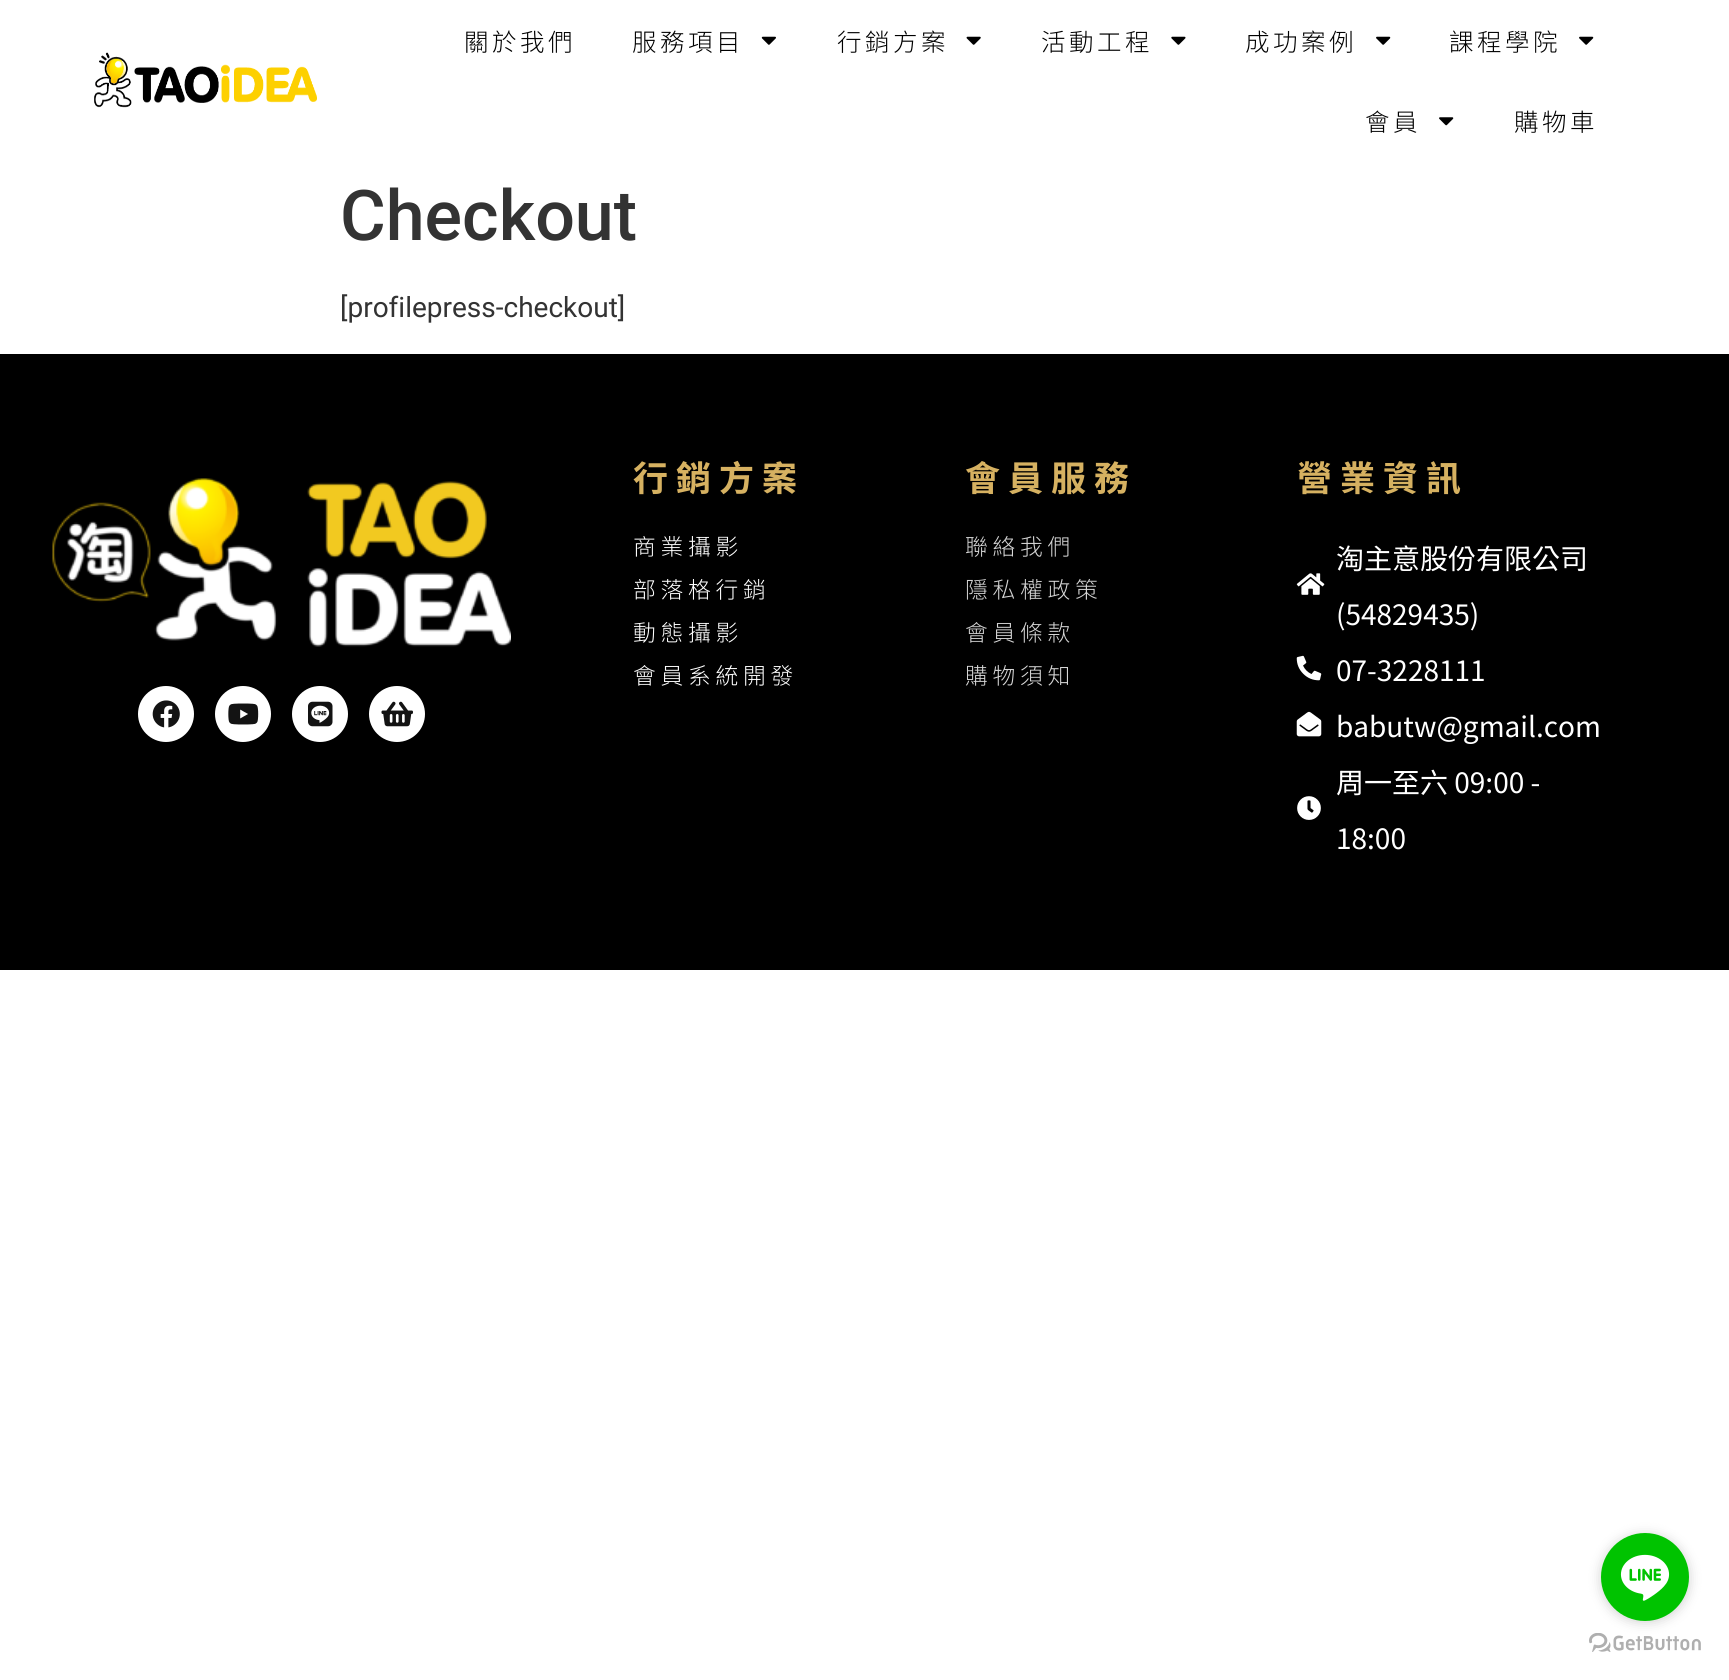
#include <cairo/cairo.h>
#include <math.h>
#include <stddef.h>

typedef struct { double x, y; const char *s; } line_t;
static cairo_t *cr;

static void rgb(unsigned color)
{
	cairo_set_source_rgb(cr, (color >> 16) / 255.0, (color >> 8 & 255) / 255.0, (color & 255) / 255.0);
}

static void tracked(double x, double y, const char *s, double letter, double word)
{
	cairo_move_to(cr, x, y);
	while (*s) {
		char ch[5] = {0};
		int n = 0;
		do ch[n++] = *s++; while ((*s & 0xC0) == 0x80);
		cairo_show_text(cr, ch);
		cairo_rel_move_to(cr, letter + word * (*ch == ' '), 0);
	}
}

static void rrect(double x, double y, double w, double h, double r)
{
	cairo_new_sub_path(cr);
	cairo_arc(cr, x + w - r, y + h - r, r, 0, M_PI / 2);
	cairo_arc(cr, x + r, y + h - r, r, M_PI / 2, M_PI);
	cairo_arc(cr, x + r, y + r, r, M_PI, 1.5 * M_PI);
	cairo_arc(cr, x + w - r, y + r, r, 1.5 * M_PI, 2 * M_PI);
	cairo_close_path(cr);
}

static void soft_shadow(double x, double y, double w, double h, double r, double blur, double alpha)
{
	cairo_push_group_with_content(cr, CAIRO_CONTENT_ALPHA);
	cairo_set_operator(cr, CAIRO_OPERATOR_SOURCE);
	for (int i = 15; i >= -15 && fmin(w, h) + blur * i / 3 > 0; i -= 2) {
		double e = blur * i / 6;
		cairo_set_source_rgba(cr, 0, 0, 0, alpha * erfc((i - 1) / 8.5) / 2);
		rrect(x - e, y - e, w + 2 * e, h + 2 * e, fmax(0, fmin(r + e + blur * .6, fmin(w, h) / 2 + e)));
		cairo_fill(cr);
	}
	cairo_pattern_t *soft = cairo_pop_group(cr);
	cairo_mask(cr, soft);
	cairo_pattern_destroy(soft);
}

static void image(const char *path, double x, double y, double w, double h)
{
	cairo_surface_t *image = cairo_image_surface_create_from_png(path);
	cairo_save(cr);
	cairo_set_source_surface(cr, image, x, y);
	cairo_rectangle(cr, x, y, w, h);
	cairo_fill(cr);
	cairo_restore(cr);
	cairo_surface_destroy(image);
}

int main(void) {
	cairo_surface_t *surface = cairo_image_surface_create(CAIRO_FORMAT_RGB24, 1729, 1680);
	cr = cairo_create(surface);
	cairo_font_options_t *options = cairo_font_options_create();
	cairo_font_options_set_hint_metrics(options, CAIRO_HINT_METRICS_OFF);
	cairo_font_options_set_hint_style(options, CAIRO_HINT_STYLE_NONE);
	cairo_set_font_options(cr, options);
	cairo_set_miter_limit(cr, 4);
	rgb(0xffffff);
	cairo_paint(cr);
	image("img/1.png", 94, 52, 223, 56);
	image("img/2.png", 761, 36, 15, 9);
	image("img/3.png", 966, 36, 15, 9);
	image("img/4.png", 1171, 36, 15, 9);
	image("img/5.png", 1376, 36, 15, 9);
	image("img/5.png", 1579, 36, 15, 9);
	image("img/6.png", 1439, 117, 15, 9);
	rgb(0x000000);
	cairo_rectangle(cr, 0, 354, 1729, 616);
	cairo_fill(cr);
	image("img/7.png", 52, 478, 459, 169);
	rgb(0xffffff);
	cairo_arc(cr, 166, 714, 28, 0, 2 * M_PI);
	cairo_fill(cr);
	image("img/8.png", 152, 700, 28, 28);
	cairo_arc(cr, 243, 714, 28, 0, 2 * M_PI);
	cairo_fill(cr);
	image("img/9.png", 228, 703, 31, 22);
	cairo_arc(cr, 320, 714, 28, 0, 2 * M_PI);
	cairo_fill(cr);
	image("img/10.png", 308, 701, 25, 26);
	cairo_arc(cr, 397, 714, 28, 0, 2 * M_PI);
	cairo_fill(cr);
	image("img/11.png", 381, 701, 32, 26);
	image("img/12.png", 1296, 573, 29, 22);
	image("img/13.png", 1296, 655, 26, 26);
	image("img/14.png", 1296, 711, 26, 26);
	image("img/15.png", 1297, 796, 24, 24);
	image("img/17.png", 1589, 1633, 112, 19);
	rgb(0x888888);
	soft_shadow(1601, 1535, 88, 87, 43.5, 6, 0.4);
	rgb(0x00c300);
	cairo_arc(cr, 1645, 1577, 44, 0, 2 * M_PI);
	cairo_fill(cr);
	image("img/16.png", 1620, 1554, 50, 47);
	cairo_select_font_face(cr, "Noto Sans TC Light", CAIRO_FONT_SLANT_NORMAL, CAIRO_FONT_WEIGHT_NORMAL);
	cairo_set_font_size(cr, 24.5);
	rgb(0x000000);
	{
		static const line_t items[] = {
			{464, 51, "關於我們"},
			{632, 51, "服務項目"},
			{837, 51, "行銷方案"},
			{1041, 51, "活動工程"},
			{1245, 51, "成功案例"},
			{1449, 51, "課程學院"},
			{1365, 131, "會員"},
			{1514, 131, "購物車"},
		};
		for (size_t i = 0; i < sizeof items / sizeof *items; i++) {
			tracked(items[i].x, items[i].y, items[i].s, 3.5, 0);
		}
	}
	cairo_select_font_face(cr, "Roboto Medium", CAIRO_FONT_SLANT_NORMAL, CAIRO_FONT_WEIGHT_NORMAL);
	cairo_set_font_size(cr, 70);
	rgb(0x333333);
	cairo_move_to(cr, 340, 240);
	cairo_show_text(cr, "Checkout");
	cairo_select_font_face(cr, "Roboto", CAIRO_FONT_SLANT_NORMAL, CAIRO_FONT_WEIGHT_NORMAL);
	cairo_set_font_size(cr, 28);
	cairo_move_to(cr, 340, 317);
	cairo_show_text(cr, "[profilepress-checkout]");
	cairo_select_font_face(cr, "Noto Sans TC", CAIRO_FONT_SLANT_NORMAL, CAIRO_FONT_WEIGHT_BOLD);
	cairo_set_font_size(cr, 35);
	rgb(0xd6b161);
	tracked(633, 491, "行銷方案", 8, 0);
	cairo_select_font_face(cr, "Noto Sans TC Light", CAIRO_FONT_SLANT_NORMAL, CAIRO_FONT_WEIGHT_NORMAL);
	cairo_set_font_size(cr, 22.75);
	rgb(0xffffff);
	{
		static const line_t items[] = {
			{633, 555, "商業攝影"},
			{633, 598, "部落格行銷"},
			{633, 641, "動態攝影"},
			{633, 684, "會員系統開發"},
		};
		for (size_t i = 0; i < sizeof items / sizeof *items; i++) {
			tracked(items[i].x, items[i].y, items[i].s, 4.75, 0);
		}
	}
	cairo_select_font_face(cr, "Noto Sans TC", CAIRO_FONT_SLANT_NORMAL, CAIRO_FONT_WEIGHT_BOLD);
	cairo_set_font_size(cr, 35);
	rgb(0xd6b161);
	tracked(965, 491, "會員服務", 8, 0);
	cairo_select_font_face(cr, "Noto Sans TC Light", CAIRO_FONT_SLANT_NORMAL, CAIRO_FONT_WEIGHT_NORMAL);
	cairo_set_font_size(cr, 22.75);
	rgb(0xd6d6d6);
	{
		static const line_t items[] = {
			{965, 555, "聯絡我們"},
			{965, 598, "隱私權政策"},
			{965, 641, "會員條款"},
			{965, 684, "購物須知"},
		};
		for (size_t i = 0; i < sizeof items / sizeof *items; i++) {
			tracked(items[i].x, items[i].y, items[i].s, 4.75, 0);
		}
	}
	cairo_select_font_face(cr, "Noto Sans TC", CAIRO_FONT_SLANT_NORMAL, CAIRO_FONT_WEIGHT_BOLD);
	cairo_set_font_size(cr, 35);
	rgb(0xd6b161);
	tracked(1297, 491, "營業資訊", 8, 0);
	cairo_select_font_face(cr, "Noto Sans TC", CAIRO_FONT_SLANT_NORMAL, CAIRO_FONT_WEIGHT_NORMAL);
	cairo_set_font_size(cr, 28);
	rgb(0xffffff);
	{
		static const line_t items[] = {
			{1336, 569, "淘主意股份有限公司"},
			{1336, 625, "(54829435)"},
			{1336, 681, "07-3228111"},
			{1336, 737, "babutw@gmail.com"},
			{1336, 793, "周一至六 09:00 -"},
			{1336, 849, "18:00"},
		};
		for (size_t i = 0; i < sizeof items / sizeof *items; i++) {
			cairo_move_to(cr, items[i].x, items[i].y);
			cairo_show_text(cr, items[i].s);
		}
	}
	cairo_surface_write_to_png(surface, "page.png");
	cairo_font_options_destroy(options);
	cairo_destroy(cr);
	cairo_surface_destroy(surface);
	return 0;
}
